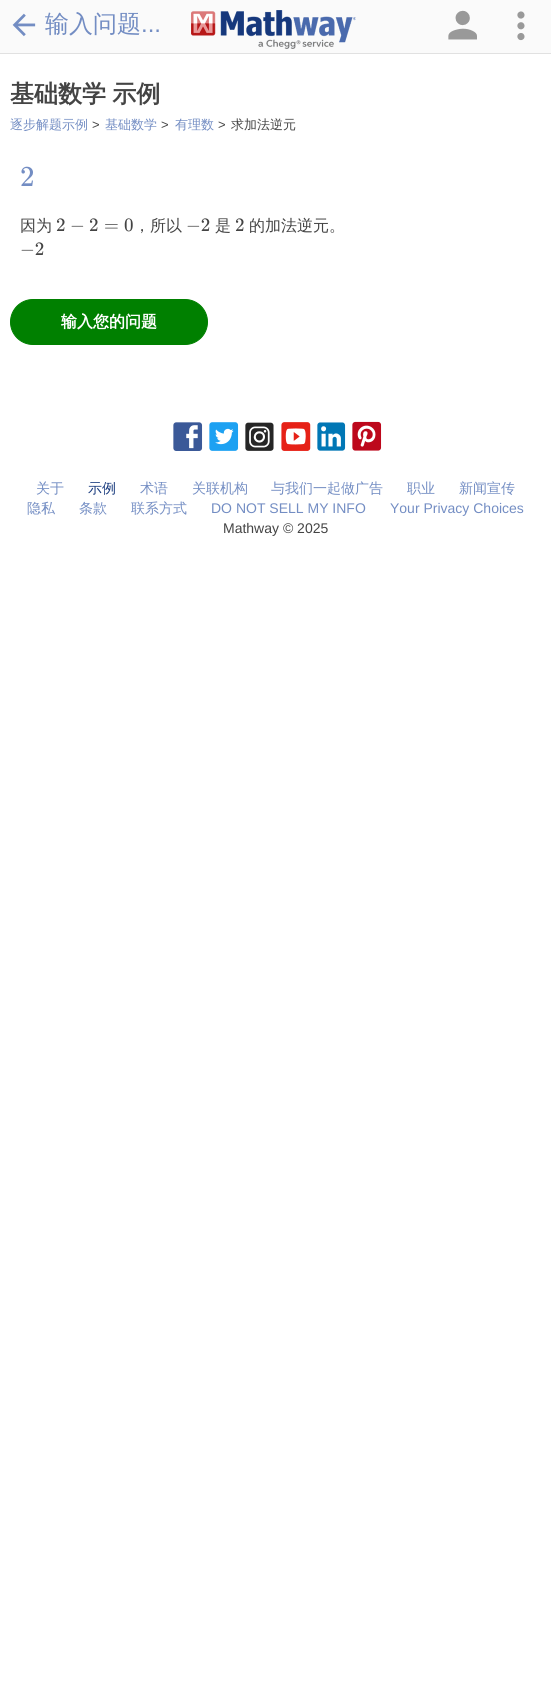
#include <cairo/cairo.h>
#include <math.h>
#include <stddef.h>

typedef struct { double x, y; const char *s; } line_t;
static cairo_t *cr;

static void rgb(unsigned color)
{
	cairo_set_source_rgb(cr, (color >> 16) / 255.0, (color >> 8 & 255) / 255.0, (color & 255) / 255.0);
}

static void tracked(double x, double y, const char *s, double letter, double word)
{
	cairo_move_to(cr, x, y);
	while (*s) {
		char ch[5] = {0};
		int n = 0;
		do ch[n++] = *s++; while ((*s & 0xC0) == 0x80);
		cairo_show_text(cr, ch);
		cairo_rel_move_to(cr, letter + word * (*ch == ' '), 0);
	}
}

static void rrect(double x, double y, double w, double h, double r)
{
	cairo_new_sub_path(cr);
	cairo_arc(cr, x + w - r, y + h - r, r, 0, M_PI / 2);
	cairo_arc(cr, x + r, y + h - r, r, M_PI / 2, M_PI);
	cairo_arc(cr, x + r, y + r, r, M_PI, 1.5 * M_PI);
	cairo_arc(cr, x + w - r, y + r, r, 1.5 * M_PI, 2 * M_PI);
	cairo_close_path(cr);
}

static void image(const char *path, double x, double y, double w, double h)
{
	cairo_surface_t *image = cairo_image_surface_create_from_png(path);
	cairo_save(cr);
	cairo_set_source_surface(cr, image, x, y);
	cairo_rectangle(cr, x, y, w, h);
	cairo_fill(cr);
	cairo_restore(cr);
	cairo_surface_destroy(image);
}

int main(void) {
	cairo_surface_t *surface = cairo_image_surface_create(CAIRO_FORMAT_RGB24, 551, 1688);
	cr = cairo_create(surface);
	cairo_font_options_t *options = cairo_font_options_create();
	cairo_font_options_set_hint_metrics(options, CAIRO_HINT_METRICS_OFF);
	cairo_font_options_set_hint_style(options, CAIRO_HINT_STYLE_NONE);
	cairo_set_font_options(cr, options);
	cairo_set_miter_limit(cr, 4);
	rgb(0xffffff);
	cairo_paint(cr);
	rgb(0xe1e1e1);
	cairo_rectangle(cr, 0, 53, 551, 1);
	cairo_fill(cr);
	rgb(0xfafafa);
	cairo_rectangle(cr, 0, 0, 551, 53);
	cairo_fill(cr);
	image("img/1.png", 12, 13, 24, 24);
	image("img/2.png", 191, 10, 165, 39);
	image("img/3.png", 448, 10, 29, 30);
	image("img/4.png", 517, 11, 8, 30);
	rgb(0x008000);
	rrect(10.5, 299.5, 197, 45, 22.5);
	cairo_fill_preserve(cr);
	cairo_set_line_width(cr, 1);
	cairo_stroke(cr);
	image("img/5.png", 173, 422, 30, 29);
	image("img/6.png", 209, 422, 30, 29);
	image("img/7.png", 245, 422, 29, 29);
	image("img/8.png", 281, 422, 30, 29);
	image("img/9.png", 317, 422, 29, 29);
	image("img/10.png", 352, 421, 30, 30);
	cairo_select_font_face(cr, "WenQuanYi Zen Hei Medium", CAIRO_FONT_SLANT_NORMAL, CAIRO_FONT_WEIGHT_NORMAL);
	cairo_set_font_size(cr, 24);
	rgb(0x738dc3);
	cairo_move_to(cr, 45, 32);
	cairo_show_text(cr, "输入问题");
	cairo_select_font_face(cr, "Liberation Sans", CAIRO_FONT_SLANT_NORMAL, CAIRO_FONT_WEIGHT_NORMAL);
	cairo_move_to(cr, 141, 32);
	cairo_show_text(cr, "...");
	cairo_select_font_face(cr, "WenQuanYi Zen Hei", CAIRO_FONT_SLANT_NORMAL, CAIRO_FONT_WEIGHT_BOLD);
	rgb(0x444444);
	tracked(10, 102, "基础数学 示例", 0, -1);
	cairo_select_font_face(cr, "WenQuanYi Zen Hei Medium", CAIRO_FONT_SLANT_NORMAL, CAIRO_FONT_WEIGHT_NORMAL);
	cairo_set_font_size(cr, 13);
	rgb(0x738dc3);
	cairo_move_to(cr, 10, 129);
	cairo_show_text(cr, "逐步解题示例");
	cairo_select_font_face(cr, "Liberation Sans", CAIRO_FONT_SLANT_NORMAL, CAIRO_FONT_WEIGHT_NORMAL);
	rgb(0x444444);
	cairo_move_to(cr, 92, 129);
	cairo_show_text(cr, ">");
	cairo_select_font_face(cr, "WenQuanYi Zen Hei Medium", CAIRO_FONT_SLANT_NORMAL, CAIRO_FONT_WEIGHT_NORMAL);
	rgb(0x738dc3);
	cairo_move_to(cr, 105, 129);
	cairo_show_text(cr, "基础数学");
	cairo_select_font_face(cr, "Liberation Sans", CAIRO_FONT_SLANT_NORMAL, CAIRO_FONT_WEIGHT_NORMAL);
	rgb(0x444444);
	cairo_move_to(cr, 161, 129);
	cairo_show_text(cr, ">");
	cairo_select_font_face(cr, "WenQuanYi Zen Hei Medium", CAIRO_FONT_SLANT_NORMAL, CAIRO_FONT_WEIGHT_NORMAL);
	rgb(0x738dc3);
	cairo_move_to(cr, 175, 129);
	cairo_show_text(cr, "有理数");
	cairo_select_font_face(cr, "Liberation Sans", CAIRO_FONT_SLANT_NORMAL, CAIRO_FONT_WEIGHT_NORMAL);
	rgb(0x444444);
	cairo_move_to(cr, 218, 129);
	cairo_show_text(cr, ">");
	cairo_select_font_face(cr, "WenQuanYi Zen Hei Medium", CAIRO_FONT_SLANT_NORMAL, CAIRO_FONT_WEIGHT_NORMAL);
	cairo_move_to(cr, 231, 129);
	cairo_show_text(cr, "求加法逆元");
	cairo_select_font_face(cr, "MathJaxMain", CAIRO_FONT_SLANT_NORMAL, CAIRO_FONT_WEIGHT_NORMAL);
	cairo_set_font_size(cr, 29);
	rgb(0x738dc3);
	cairo_move_to(cr, 20, 186);
	cairo_show_text(cr, "2");
	cairo_select_font_face(cr, "WenQuanYi Zen Hei Medium", CAIRO_FONT_SLANT_NORMAL, CAIRO_FONT_WEIGHT_NORMAL);
	cairo_set_font_size(cr, 16);
	rgb(0x444444);
	cairo_move_to(cr, 20, 231);
	cairo_show_text(cr, "因为");
	cairo_select_font_face(cr, "MathJaxMain", CAIRO_FONT_SLANT_NORMAL, CAIRO_FONT_WEIGHT_NORMAL);
	cairo_set_font_size(cr, 19);
	{
		static const line_t items[] = {
			{56, 231, "2"},
			{70, 231, "−"},
			{89, 231, "2"},
			{104, 231, "="},
			{124, 231, "0"},
		};
		for (size_t i = 0; i < sizeof items / sizeof *items; i++) {
			cairo_move_to(cr, items[i].x, items[i].y);
			cairo_show_text(cr, items[i].s);
		}
	}
	cairo_select_font_face(cr, "WenQuanYi Zen Hei Medium", CAIRO_FONT_SLANT_NORMAL, CAIRO_FONT_WEIGHT_NORMAL);
	cairo_set_font_size(cr, 16);
	cairo_move_to(cr, 134, 231);
	cairo_show_text(cr, "，所以");
	cairo_select_font_face(cr, "MathJaxMain", CAIRO_FONT_SLANT_NORMAL, CAIRO_FONT_WEIGHT_NORMAL);
	cairo_set_font_size(cr, 19);
	cairo_move_to(cr, 186, 231);
	cairo_show_text(cr, "−2");
	cairo_select_font_face(cr, "WenQuanYi Zen Hei Medium", CAIRO_FONT_SLANT_NORMAL, CAIRO_FONT_WEIGHT_NORMAL);
	cairo_set_font_size(cr, 16);
	cairo_move_to(cr, 215, 231);
	cairo_show_text(cr, "是");
	cairo_select_font_face(cr, "MathJaxMain", CAIRO_FONT_SLANT_NORMAL, CAIRO_FONT_WEIGHT_NORMAL);
	cairo_set_font_size(cr, 19);
	cairo_move_to(cr, 235, 231);
	cairo_show_text(cr, "2");
	cairo_select_font_face(cr, "WenQuanYi Zen Hei Medium", CAIRO_FONT_SLANT_NORMAL, CAIRO_FONT_WEIGHT_NORMAL);
	cairo_set_font_size(cr, 16);
	cairo_move_to(cr, 249, 231);
	cairo_show_text(cr, "的加法逆元。");
	cairo_select_font_face(cr, "MathJaxMain", CAIRO_FONT_SLANT_NORMAL, CAIRO_FONT_WEIGHT_NORMAL);
	cairo_set_font_size(cr, 19);
	cairo_move_to(cr, 20, 255);
	cairo_show_text(cr, "−2");
	cairo_select_font_face(cr, "WenQuanYi Zen Hei", CAIRO_FONT_SLANT_NORMAL, CAIRO_FONT_WEIGHT_BOLD);
	cairo_set_font_size(cr, 16);
	rgb(0xffffff);
	cairo_move_to(cr, 61, 327);
	cairo_show_text(cr, "输入您的问题");
	cairo_select_font_face(cr, "WenQuanYi Zen Hei Medium", CAIRO_FONT_SLANT_NORMAL, CAIRO_FONT_WEIGHT_NORMAL);
	cairo_set_font_size(cr, 14);
	rgb(0x738dc3);
	cairo_move_to(cr, 36, 493);
	cairo_show_text(cr, "关于");
	rgb(0x16387c);
	cairo_move_to(cr, 88, 493);
	cairo_show_text(cr, "示例");
	rgb(0x738dc3);
	{
		static const line_t items[] = {
			{140, 493, "术语"},
			{192, 493, "关联机构"},
			{271, 493, "与我们一起做广告"},
			{407, 493, "职业"},
			{459, 493, "新闻宣传"},
			{27, 513, "隐私"},
			{79, 513, "条款"},
			{131, 513, "联系方式"},
		};
		for (size_t i = 0; i < sizeof items / sizeof *items; i++) {
			cairo_move_to(cr, items[i].x, items[i].y);
			cairo_show_text(cr, items[i].s);
		}
	}
	cairo_select_font_face(cr, "Liberation Sans", CAIRO_FONT_SLANT_NORMAL, CAIRO_FONT_WEIGHT_NORMAL);
	cairo_move_to(cr, 211, 513);
	cairo_show_text(cr, "DO NOT SELL MY INFO");
	cairo_move_to(cr, 390, 513);
	cairo_show_text(cr, "Your Privacy Choices");
	rgb(0x444444);
	cairo_move_to(cr, 223, 533);
	cairo_show_text(cr, "Mathway © 2025");
	cairo_surface_write_to_png(surface, "page.png");
	cairo_font_options_destroy(options);
	cairo_destroy(cr);
	cairo_surface_destroy(surface);
	return 0;
}
